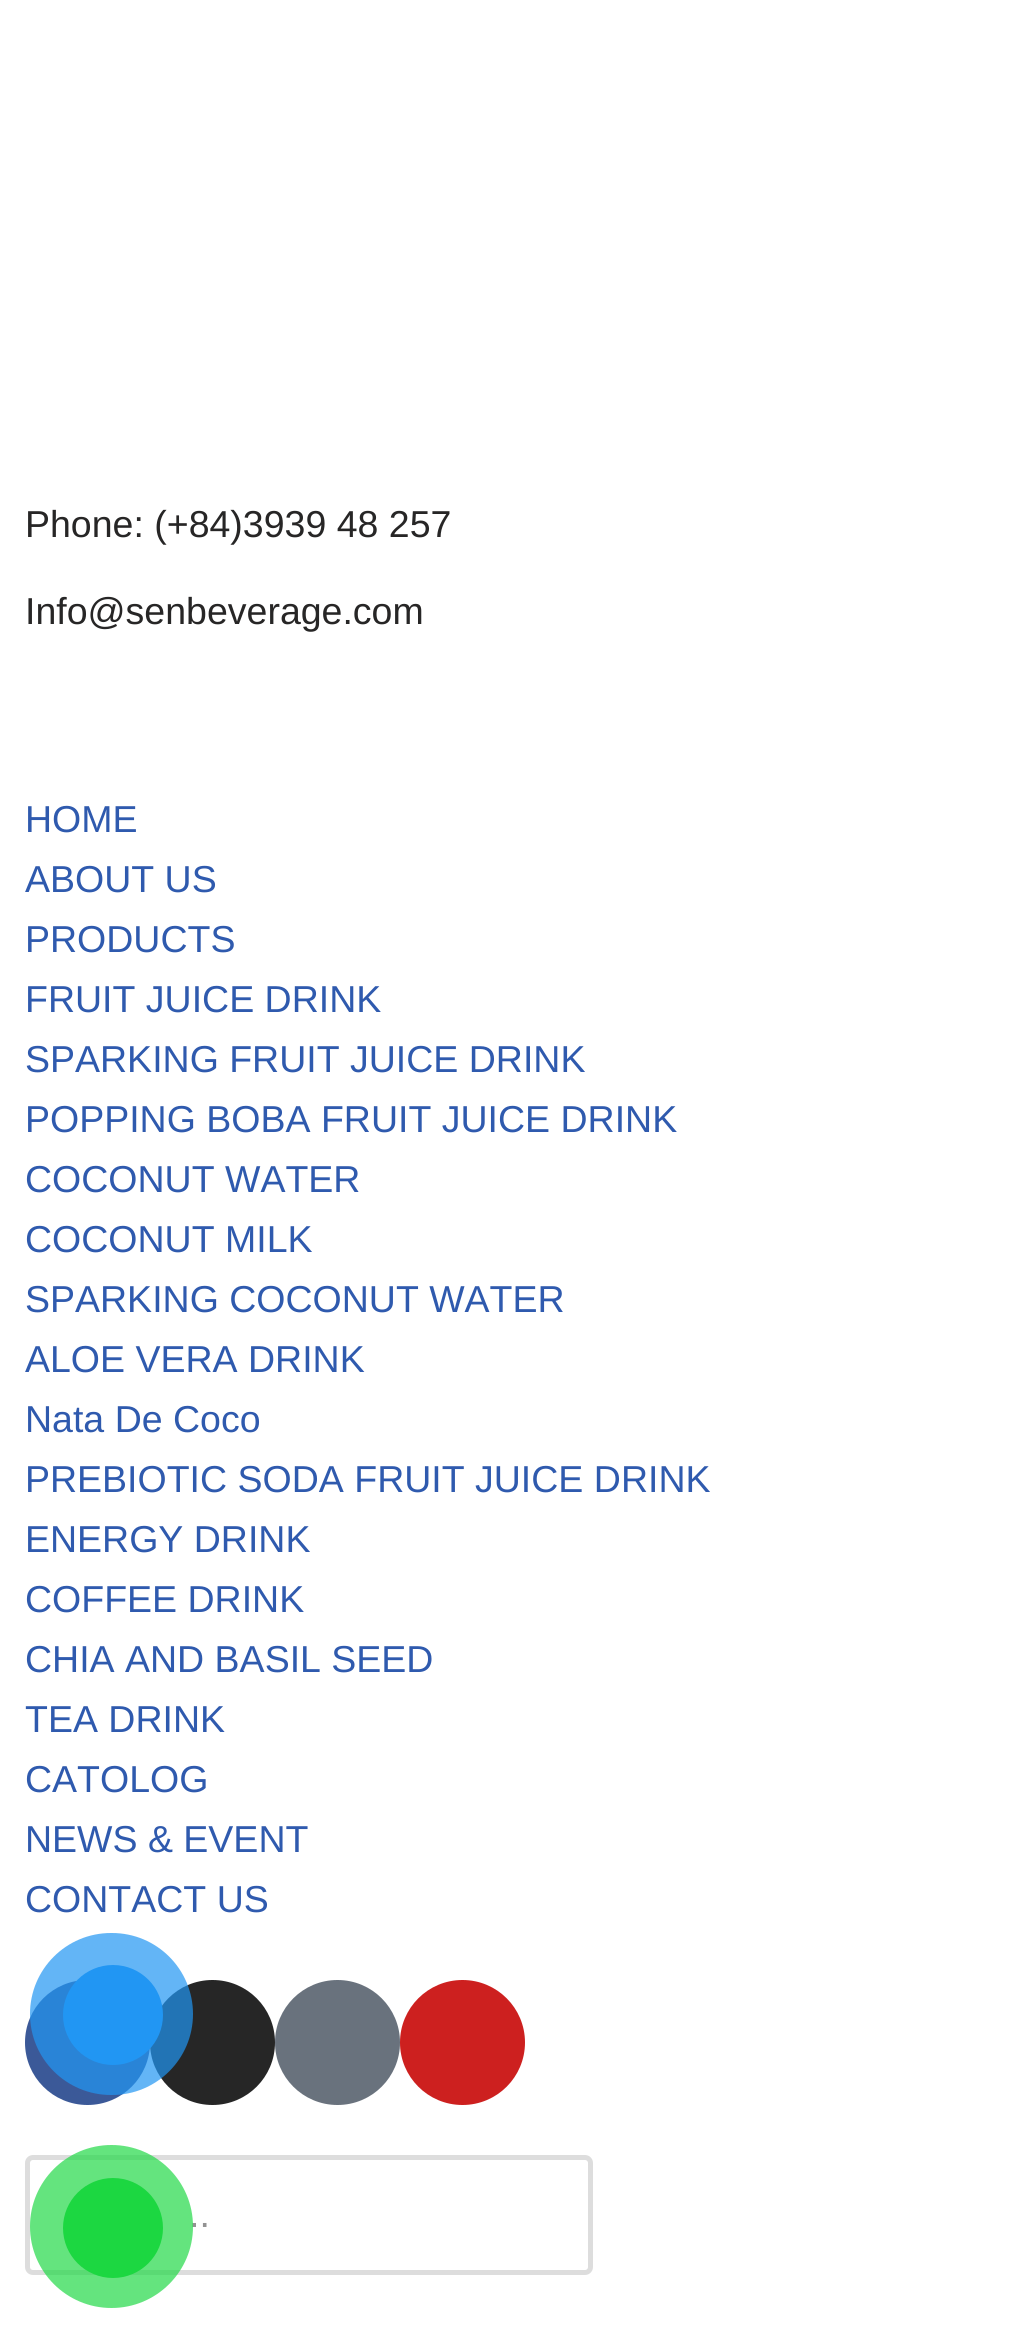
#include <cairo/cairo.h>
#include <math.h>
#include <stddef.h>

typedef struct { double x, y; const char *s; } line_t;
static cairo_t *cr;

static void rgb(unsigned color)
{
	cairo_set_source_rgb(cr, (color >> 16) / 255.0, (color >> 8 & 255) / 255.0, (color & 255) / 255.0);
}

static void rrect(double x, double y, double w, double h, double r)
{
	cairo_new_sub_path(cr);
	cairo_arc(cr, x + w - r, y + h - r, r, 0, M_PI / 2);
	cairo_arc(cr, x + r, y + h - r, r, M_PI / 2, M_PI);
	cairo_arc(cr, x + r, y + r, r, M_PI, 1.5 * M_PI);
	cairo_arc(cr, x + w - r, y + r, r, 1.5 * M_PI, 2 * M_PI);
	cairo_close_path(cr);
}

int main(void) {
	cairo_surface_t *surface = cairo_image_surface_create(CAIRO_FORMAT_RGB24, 1014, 2338);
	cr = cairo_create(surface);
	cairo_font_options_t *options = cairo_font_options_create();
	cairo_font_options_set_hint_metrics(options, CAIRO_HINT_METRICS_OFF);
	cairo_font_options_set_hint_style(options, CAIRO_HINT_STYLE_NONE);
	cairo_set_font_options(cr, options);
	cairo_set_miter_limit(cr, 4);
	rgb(0xffffff);
	cairo_paint(cr);
	rgb(0x3b5998);
	cairo_arc(cr, 87.5, 2042.5, 62.5, 0, 2 * M_PI);
	cairo_fill(cr);
	rgb(0x262626);
	cairo_arc(cr, 212.5, 2042.5, 62.5, 0, 2 * M_PI);
	cairo_fill(cr);
	rgb(0x69727d);
	cairo_arc(cr, 337.5, 2042.5, 62.5, 0, 2 * M_PI);
	cairo_fill(cr);
	rgb(0xcd201f);
	cairo_arc(cr, 462.5, 2042.5, 62.5, 0, 2 * M_PI);
	cairo_fill(cr);
	rrect(27.5, 2157.5, 563, 115, 5.5);
	rgb(0xdddddd);
	cairo_set_line_width(cr, 5);
	cairo_stroke(cr);
	cairo_set_source_rgba(cr, 0.129, 0.588, 0.953, 0.7);
	rrect(30, 1933, 163, 162, 81);
	cairo_fill(cr);
	rgb(0x2196f3);
	cairo_arc(cr, 113, 2015, 50, 0, 2 * M_PI);
	cairo_fill(cr);
	cairo_select_font_face(cr, "Liberation Sans", CAIRO_FONT_SLANT_NORMAL, CAIRO_FONT_WEIGHT_NORMAL);
	cairo_set_font_size(cr, 37.5);
	rgb(0x272626);
	cairo_move_to(cr, 25, 537);
	cairo_show_text(cr, "Phone: (+84)3939 48 257");
	cairo_move_to(cr, 25, 624);
	cairo_show_text(cr, "Info@senbeverage.com");
	rgb(0x2f5aae);
	{
		static const line_t items[] = {
			{25, 832, "HOME"},
			{25, 892, "ABOUT US"},
			{25, 952, "PRODUCTS"},
			{25, 1012, "FRUIT JUICE DRINK"},
			{25, 1072, "SPARKING FRUIT JUICE DRINK"},
			{25, 1132, "POPPING BOBA FRUIT JUICE DRINK"},
			{25, 1192, "COCONUT WATER"},
			{25, 1252, "COCONUT MILK"},
			{25, 1312, "SPARKING COCONUT WATER"},
			{25, 1372, "ALOE VERA DRINK"},
			{25, 1432, "Nata De Coco"},
			{25, 1492, "PREBIOTIC SODA FRUIT JUICE DRINK"},
			{25, 1552, "ENERGY DRINK"},
			{25, 1612, "COFFEE DRINK"},
			{25, 1672, "CHIA AND BASIL SEED"},
			{25, 1732, "TEA DRINK"},
			{25, 1792, "CATOLOG"},
			{25, 1852, "NEWS & EVENT"},
			{25, 1912, "CONTACT US"},
		};
		for (size_t i = 0; i < sizeof items / sizeof *items; i++) {
			cairo_move_to(cr, items[i].x, items[i].y);
			cairo_show_text(cr, items[i].s);
		}
	}
	rgb(0x939393);
	cairo_move_to(cr, 189, 2227);
	cairo_show_text(cr, "..");
	cairo_set_source_rgba(cr, 0.137, 0.851, 0.282, 0.7);
	cairo_new_path(cr);
	cairo_arc(cr, 111.5, 2226.5, 81.5, 0, 2 * M_PI);
	cairo_fill(cr);
	rgb(0x1cd741);
	cairo_arc(cr, 113, 2228, 50, 0, 2 * M_PI);
	cairo_fill(cr);
	cairo_surface_write_to_png(surface, "page.png");
	cairo_font_options_destroy(options);
	cairo_destroy(cr);
	cairo_surface_destroy(surface);
	return 0;
}
